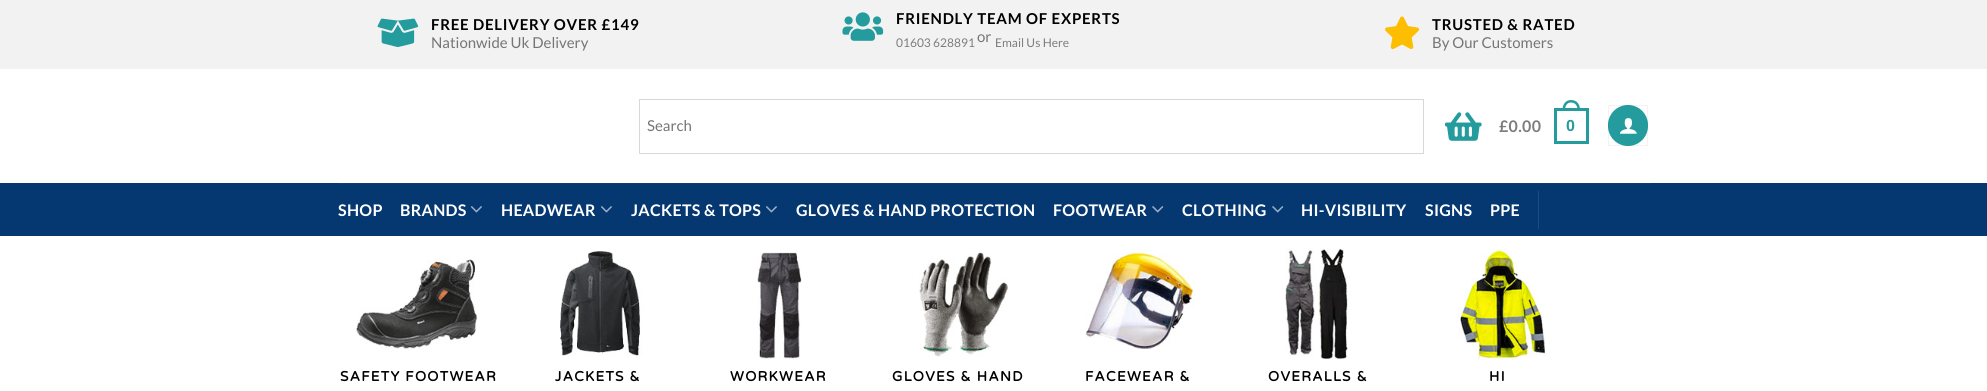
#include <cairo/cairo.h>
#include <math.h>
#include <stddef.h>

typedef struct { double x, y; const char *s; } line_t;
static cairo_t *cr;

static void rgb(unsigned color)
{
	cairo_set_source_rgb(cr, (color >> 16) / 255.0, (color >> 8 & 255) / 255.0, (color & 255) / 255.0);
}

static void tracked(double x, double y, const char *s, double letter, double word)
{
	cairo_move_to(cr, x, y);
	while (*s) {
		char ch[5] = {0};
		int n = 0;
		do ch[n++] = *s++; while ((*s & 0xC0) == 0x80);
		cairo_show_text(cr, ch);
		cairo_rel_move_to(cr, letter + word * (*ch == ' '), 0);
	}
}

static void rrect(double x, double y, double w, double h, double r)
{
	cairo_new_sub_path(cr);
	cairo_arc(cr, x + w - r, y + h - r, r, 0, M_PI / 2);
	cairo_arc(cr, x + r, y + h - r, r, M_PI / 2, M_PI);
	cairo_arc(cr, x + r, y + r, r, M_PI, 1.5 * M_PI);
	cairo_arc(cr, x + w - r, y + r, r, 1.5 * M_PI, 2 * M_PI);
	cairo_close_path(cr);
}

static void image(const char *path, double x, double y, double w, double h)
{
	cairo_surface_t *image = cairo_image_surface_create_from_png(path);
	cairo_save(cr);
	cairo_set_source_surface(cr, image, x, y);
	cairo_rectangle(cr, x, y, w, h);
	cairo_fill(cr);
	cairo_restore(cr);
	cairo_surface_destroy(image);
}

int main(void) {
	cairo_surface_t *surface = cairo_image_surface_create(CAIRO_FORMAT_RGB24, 1987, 391);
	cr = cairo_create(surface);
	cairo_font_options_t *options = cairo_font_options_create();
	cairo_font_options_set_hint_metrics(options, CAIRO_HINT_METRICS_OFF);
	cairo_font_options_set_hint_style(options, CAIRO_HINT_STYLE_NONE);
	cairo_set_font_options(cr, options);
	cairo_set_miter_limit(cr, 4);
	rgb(0xffffff);
	cairo_paint(cr);
	rgb(0xf2f2f2);
	cairo_rectangle(cr, 0, 0, 1987, 69);
	cairo_fill(cr);
	image("img/1.png", 377, 18, 42, 29);
	image("img/2.png", 842, 12, 42, 29);
	image("img/3.png", 1385, 16, 34, 34);
	cairo_rectangle(cr, 639.5, 99.5, 784, 54);
	rgb(0xd8d8d8);
	cairo_set_line_width(cr, 1);
	cairo_stroke(cr);
	image("img/4.png", 1445, 112, 37, 29);
	cairo_rectangle(cr, 1555.5, 109.5, 32, 33);
	rgb(0x249c9d);
	cairo_set_line_width(cr, 3);
	cairo_stroke(cr);
	cairo_set_fill_rule(cr, CAIRO_FILL_RULE_EVEN_ODD);
	cairo_new_path(cr);
	cairo_move_to(cr, 1571, 100);
	cairo_curve_to(cr, 1577, 100, 1580, 104.5, 1580, 110);
	cairo_line_to(cr, 1562.5, 110);
	cairo_curve_to(cr, 1562.5, 104.5, 1565.5, 100, 1571, 100);
	cairo_close_path(cr);
	cairo_move_to(cr, 1571, 102.5);
	cairo_curve_to(cr, 1575.5, 102.5, 1577.5, 106, 1577.5, 110);
	cairo_line_to(cr, 1565, 110);
	cairo_curve_to(cr, 1565, 106, 1567, 102.5, 1571, 102.5);
	cairo_close_path(cr);
	cairo_fill(cr);
	rrect(1608, 105, 40, 41, 20);
	cairo_fill(cr);
	cairo_rectangle(cr, 1608.5, 105.5, 39, 40);
	cairo_set_source_rgba(cr, 0, 0, 0, 0.05);
	cairo_set_line_width(cr, 1);
	cairo_stroke(cr);
	image("img/5.png", 1620, 118, 17, 16);
	rgb(0x053771);
	cairo_rectangle(cr, 0, 183, 1987, 53);
	cairo_fill(cr);
	rgb(0x103d72);
	cairo_rectangle(cr, 338, 183, 1312, 1);
	cairo_fill(cr);
	image("img/6.png", 471, 206, 11, 7);
	image("img/6.png", 601, 206, 11, 7);
	image("img/6.png", 766, 206, 11, 7);
	image("img/7.png", 1152, 206, 12, 7);
	image("img/7.png", 1272, 206, 12, 7);
	rgb(0x1e4b7f);
	cairo_rectangle(cr, 1538, 191, 1, 38);
	cairo_fill(cr);
	image("img/8.png", 356, 259, 122, 90);
	image("img/9.png", 560, 251, 83, 105);
	image("img/10.png", 757, 252, 45, 107);
	image("img/11.png", 919, 252, 89, 105);
	image("img/12.png", 1085, 248, 110, 101);
	image("img/13.png", 1285, 248, 63, 111);
	image("img/14.png", 1458, 247, 88, 114);
	cairo_select_font_face(cr, "Lato", CAIRO_FONT_SLANT_NORMAL, CAIRO_FONT_WEIGHT_BOLD);
	cairo_set_font_size(cr, 15);
	rgb(0x000000);
	tracked(431, 30, "FREE DELIVERY OVER £149", 0.75, 0);
	cairo_select_font_face(cr, "Lato", CAIRO_FONT_SLANT_NORMAL, CAIRO_FONT_WEIGHT_NORMAL);
	rgb(0x757575);
	cairo_move_to(cr, 431, 48);
	cairo_show_text(cr, "Nationwide Uk Delivery");
	cairo_select_font_face(cr, "Lato", CAIRO_FONT_SLANT_NORMAL, CAIRO_FONT_WEIGHT_BOLD);
	rgb(0x000000);
	tracked(896, 24, "FRIENDLY TEAM OF EXPERTS", 0.75, 0);
	cairo_select_font_face(cr, "Lato", CAIRO_FONT_SLANT_NORMAL, CAIRO_FONT_WEIGHT_NORMAL);
	cairo_set_font_size(cr, 12);
	rgb(0x7d7d7d);
	cairo_move_to(cr, 896, 47);
	cairo_show_text(cr, "01603 628891");
	cairo_set_font_size(cr, 15);
	rgb(0x757575);
	cairo_move_to(cr, 977, 42);
	cairo_show_text(cr, "or");
	cairo_set_font_size(cr, 12);
	rgb(0x7d7d7d);
	cairo_move_to(cr, 995, 47);
	cairo_show_text(cr, "Email Us Here");
	cairo_select_font_face(cr, "Lato", CAIRO_FONT_SLANT_NORMAL, CAIRO_FONT_WEIGHT_BOLD);
	cairo_set_font_size(cr, 15);
	rgb(0x000000);
	tracked(1432, 30, "TRUSTED & RATED", 0.75, 0);
	cairo_select_font_face(cr, "Lato", CAIRO_FONT_SLANT_NORMAL, CAIRO_FONT_WEIGHT_NORMAL);
	rgb(0x757575);
	cairo_move_to(cr, 1432, 48);
	cairo_show_text(cr, "By Our Customers");
	cairo_move_to(cr, 647, 131);
	cairo_show_text(cr, "Search");
	cairo_select_font_face(cr, "Lato", CAIRO_FONT_SLANT_NORMAL, CAIRO_FONT_WEIGHT_BOLD);
	cairo_set_font_size(cr, 16);
	rgb(0x7d7d7d);
	tracked(1499, 132, "£0.00", 0.3, 0);
	cairo_select_font_face(cr, "Liberation Sans", CAIRO_FONT_SLANT_NORMAL, CAIRO_FONT_WEIGHT_BOLD);
	rgb(0x249c9d);
	tracked(1566, 131, "0", 0.3, 0);
	cairo_select_font_face(cr, "Lato", CAIRO_FONT_SLANT_NORMAL, CAIRO_FONT_WEIGHT_BOLD);
	rgb(0xffffff);
	{
		static const line_t items[] = {
			{338, 216, "SHOP"},
			{400, 216, "BRANDS"},
			{501, 216, "HEADWEAR"},
			{631, 216, "JACKETS & TOPS"},
			{796, 216, "GLOVES & HAND PROTECTION"},
			{1053, 216, "FOOTWEAR"},
			{1182, 216, "CLOTHING"},
			{1301, 216, "HI-VISIBILITY"},
			{1425, 216, "SIGNS"},
			{1490, 216, "PPE"},
		};
		for (size_t i = 0; i < sizeof items / sizeof *items; i++) {
			tracked(items[i].x, items[i].y, items[i].s, 0.3, 0);
		}
	}
	cairo_select_font_face(cr, "Varela Round", CAIRO_FONT_SLANT_NORMAL, CAIRO_FONT_WEIGHT_BOLD);
	cairo_set_font_size(cr, 13.75);
	rgb(0x000000);
	{
		static const line_t items[] = {
			{340, 381, "SAFETY FOOTWEAR"},
			{555, 381, "JACKETS &"},
			{730, 381, "WORKWEAR"},
			{892, 381, "GLOVES & HAND"},
			{1085, 381, "FACEWEAR &"},
			{1268, 381, "OVERALLS &"},
			{1489, 381, "HI"},
		};
		for (size_t i = 0; i < sizeof items / sizeof *items; i++) {
			tracked(items[i].x, items[i].y, items[i].s, 1.25, 0);
		}
	}
	cairo_surface_write_to_png(surface, "page.png");
	cairo_font_options_destroy(options);
	cairo_destroy(cr);
	cairo_surface_destroy(surface);
	return 0;
}
